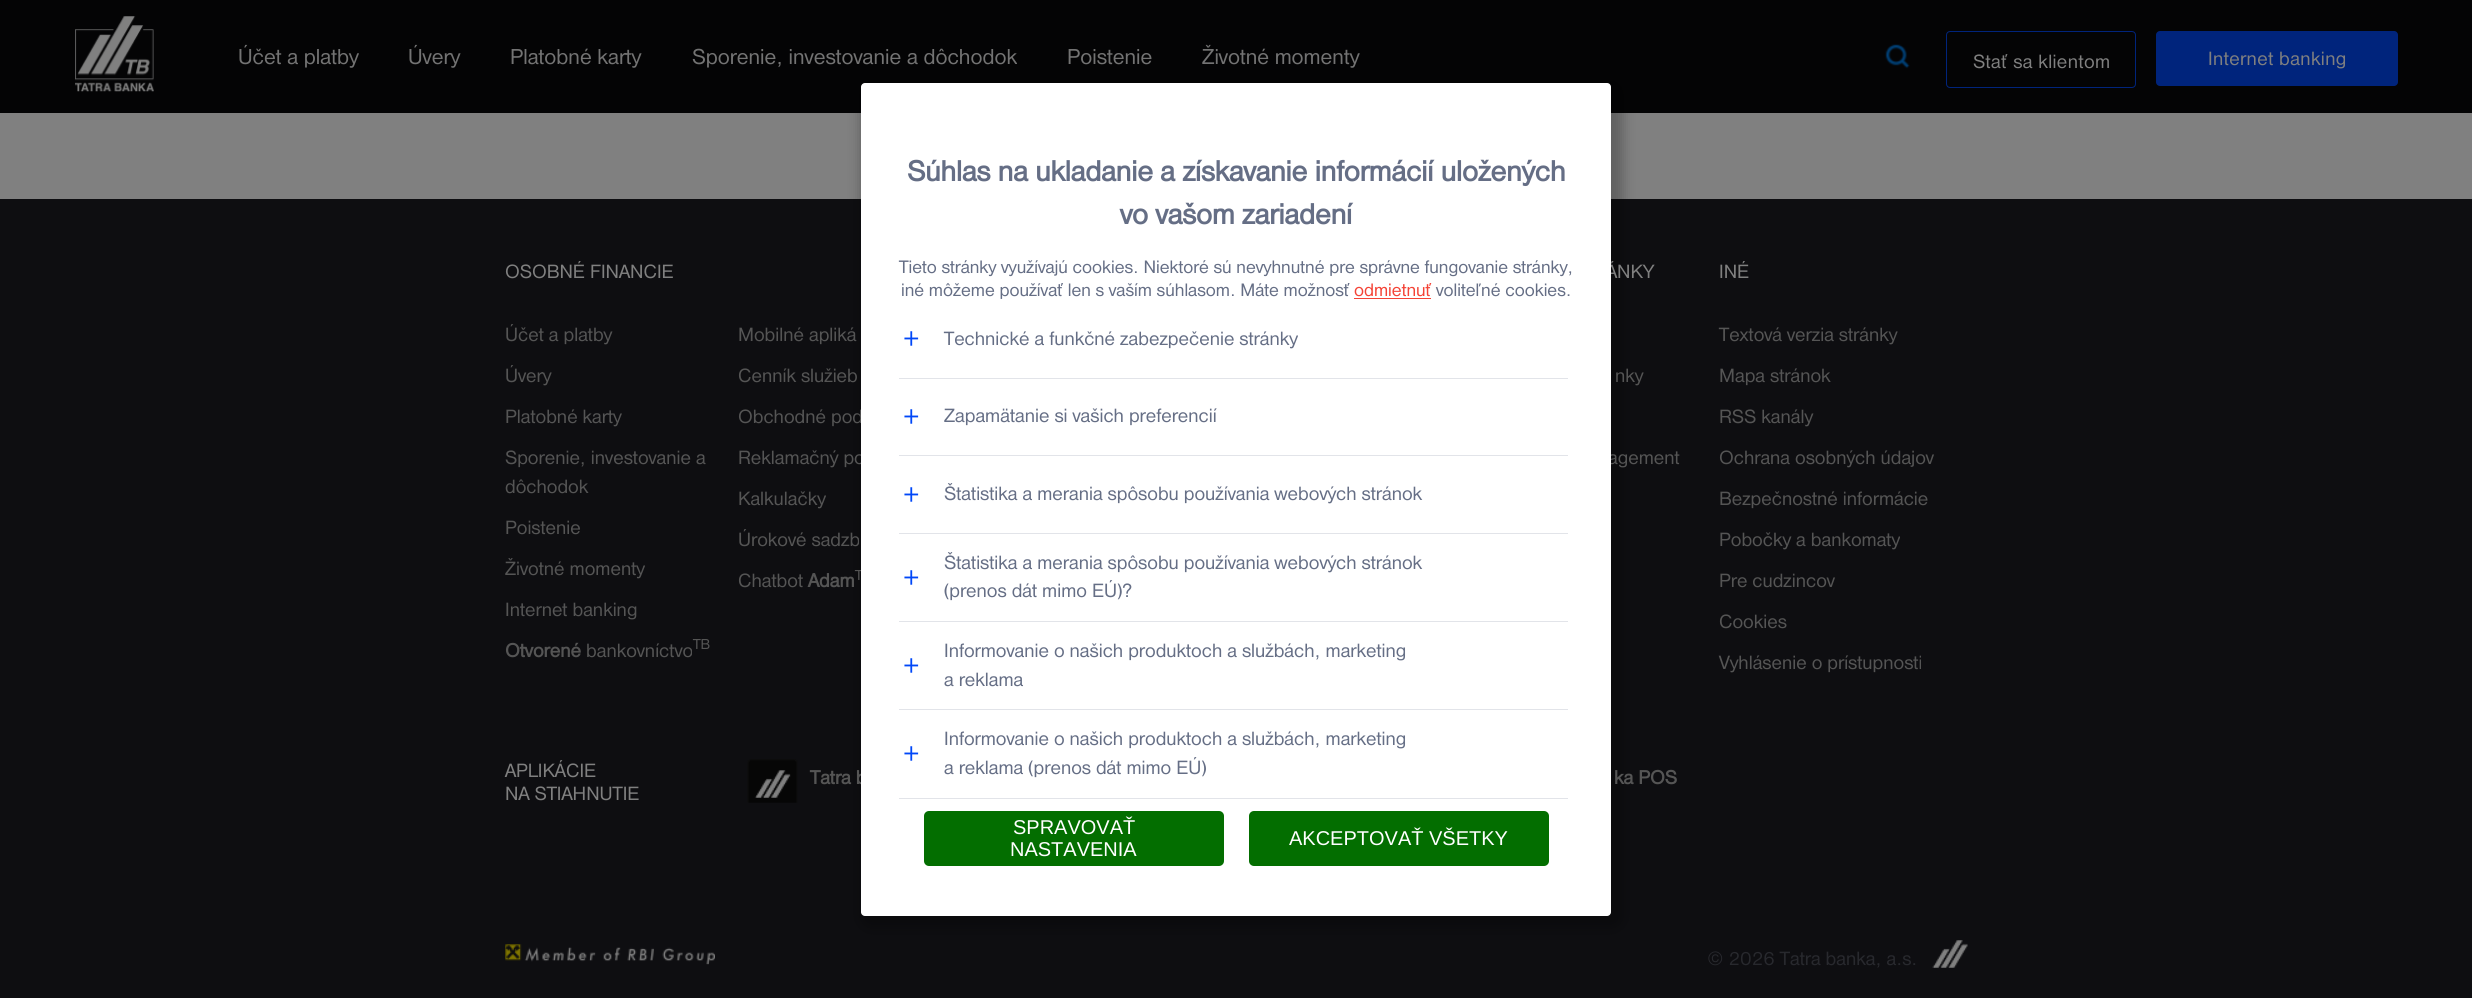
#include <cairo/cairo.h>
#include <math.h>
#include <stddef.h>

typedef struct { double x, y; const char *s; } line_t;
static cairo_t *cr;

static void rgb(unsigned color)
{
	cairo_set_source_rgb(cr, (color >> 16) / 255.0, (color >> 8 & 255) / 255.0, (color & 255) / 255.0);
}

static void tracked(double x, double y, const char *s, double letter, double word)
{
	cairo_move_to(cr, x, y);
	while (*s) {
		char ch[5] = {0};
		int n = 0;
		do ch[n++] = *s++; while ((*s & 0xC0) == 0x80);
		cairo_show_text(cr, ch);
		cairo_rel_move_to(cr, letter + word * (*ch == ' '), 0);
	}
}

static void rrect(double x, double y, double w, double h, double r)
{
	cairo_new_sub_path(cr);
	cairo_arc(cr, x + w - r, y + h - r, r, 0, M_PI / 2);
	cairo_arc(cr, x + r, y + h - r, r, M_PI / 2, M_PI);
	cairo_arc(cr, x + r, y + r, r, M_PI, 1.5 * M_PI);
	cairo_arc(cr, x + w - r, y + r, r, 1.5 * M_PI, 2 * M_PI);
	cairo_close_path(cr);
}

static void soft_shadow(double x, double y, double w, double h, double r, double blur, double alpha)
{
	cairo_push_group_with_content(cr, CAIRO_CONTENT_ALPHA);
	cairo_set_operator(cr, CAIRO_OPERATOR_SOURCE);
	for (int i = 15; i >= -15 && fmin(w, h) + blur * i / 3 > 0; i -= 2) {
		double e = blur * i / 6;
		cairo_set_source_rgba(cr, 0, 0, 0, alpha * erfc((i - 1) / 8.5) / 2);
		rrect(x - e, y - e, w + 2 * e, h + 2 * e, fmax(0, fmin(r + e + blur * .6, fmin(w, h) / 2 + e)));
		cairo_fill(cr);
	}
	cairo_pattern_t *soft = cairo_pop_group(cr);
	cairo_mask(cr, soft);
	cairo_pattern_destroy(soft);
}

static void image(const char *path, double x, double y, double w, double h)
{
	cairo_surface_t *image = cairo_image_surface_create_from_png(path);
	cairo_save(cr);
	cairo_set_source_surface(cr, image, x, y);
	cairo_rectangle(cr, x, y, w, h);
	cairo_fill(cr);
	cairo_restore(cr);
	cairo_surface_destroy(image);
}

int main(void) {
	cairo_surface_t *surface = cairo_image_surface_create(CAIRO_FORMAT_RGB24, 2472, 998);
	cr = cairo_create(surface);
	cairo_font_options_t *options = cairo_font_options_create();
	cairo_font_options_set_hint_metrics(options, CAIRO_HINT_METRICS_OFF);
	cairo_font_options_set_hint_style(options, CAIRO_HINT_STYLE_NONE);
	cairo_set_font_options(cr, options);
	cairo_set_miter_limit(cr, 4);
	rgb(0x808080);
	cairo_paint(cr);
	rgb(0x040405);
	cairo_rectangle(cr, 0, 0, 2472, 113);
	cairo_fill(cr);
	image("img/1.png", 75, 16, 79, 76);
	image("img/2.png", 1885, 44, 25, 25);
	rrect(1946.5, 31.5, 189, 56, 3.5);
	rgb(0x00247c);
	cairo_set_line_width(cr, 1);
	cairo_stroke(cr);
	rrect(2156, 31, 242, 55, 4);
	cairo_fill(cr);
	rgb(0x0e0e11);
	cairo_rectangle(cr, 0, 199, 2472, 799);
	cairo_fill(cr);
	image("img/3.png", 747, 759, 51, 44);
	image("img/4.png", 505, 944, 210, 21);
	image("img/5.png", 1932, 940, 36, 28);
	rgb(0x000000);
	soft_shadow(860, 81, 763, 847, 10, 6, 0.25);
	cairo_select_font_face(cr, "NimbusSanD", CAIRO_FONT_SLANT_NORMAL, CAIRO_FONT_WEIGHT_NORMAL);
	cairo_set_font_size(cr, 22.5);
	rgb(0x737373);
	{
		static const line_t items[] = {
			{238, 64, "Účet a platby"},
			{408, 64, "Úvery"},
			{510, 64, "Platobné karty"},
			{692, 64, "Sporenie, investovanie a dôchodok"},
			{1067, 64, "Poistenie"},
			{1202, 64, "Životné momenty"},
		};
		for (size_t i = 0; i < sizeof items / sizeof *items; i++) {
			cairo_move_to(cr, items[i].x, items[i].y);
			cairo_show_text(cr, items[i].s);
		}
	}
	cairo_set_font_size(cr, 20);
	rgb(0x808080);
	tracked(1973, 68, "Stať sa klientom", 0.4, 0);
	tracked(2208, 65, "Internet banking", 0.4, 0);
	cairo_move_to(cr, 505, 278);
	cairo_show_text(cr, "OSOBNÉ FINANCIE");
	rgb(0x555555);
	{
		static const line_t items[] = {
			{505, 341, "Účet a platby"},
			{505, 382, "Úvery"},
			{505, 423, "Platobné karty"},
			{505, 464, "Sporenie, investovanie a"},
			{505, 493, "dôchodok"},
			{505, 534, "Poistenie"},
			{505, 575, "Životné momenty"},
			{505, 616, "Internet banking"},
		};
		for (size_t i = 0; i < sizeof items / sizeof *items; i++) {
			cairo_move_to(cr, items[i].x, items[i].y);
			cairo_show_text(cr, items[i].s);
		}
	}
	cairo_select_font_face(cr, "NimbusSanD", CAIRO_FONT_SLANT_NORMAL, CAIRO_FONT_WEIGHT_BOLD);
	cairo_move_to(cr, 505, 657);
	cairo_show_text(cr, "Otvorené");
	cairo_select_font_face(cr, "NimbusSanD", CAIRO_FONT_SLANT_NORMAL, CAIRO_FONT_WEIGHT_NORMAL);
	cairo_move_to(cr, 586, 657);
	cairo_show_text(cr, "bankovníctvo");
	cairo_set_font_size(cr, 15);
	cairo_move_to(cr, 693, 649);
	cairo_show_text(cr, "TB");
	cairo_set_font_size(cr, 20);
	{
		static const line_t items[] = {
			{738, 341, "Mobilné apliká"},
			{738, 382, "Cenník služieb"},
			{738, 423, "Obchodné pod"},
			{738, 464, "Reklamačný po"},
			{738, 505, "Kalkulačky"},
			{738, 546, "Úrokové sadzb"},
			{738, 587, "Chatbot"},
		};
		for (size_t i = 0; i < sizeof items / sizeof *items; i++) {
			cairo_move_to(cr, items[i].x, items[i].y);
			cairo_show_text(cr, items[i].s);
		}
	}
	cairo_select_font_face(cr, "NimbusSanD", CAIRO_FONT_SLANT_NORMAL, CAIRO_FONT_WEIGHT_BOLD);
	cairo_move_to(cr, 808, 587);
	cairo_show_text(cr, "Adam");
	cairo_select_font_face(cr, "NimbusSanD", CAIRO_FONT_SLANT_NORMAL, CAIRO_FONT_WEIGHT_NORMAL);
	cairo_set_font_size(cr, 15);
	cairo_move_to(cr, 855, 580);
	cairo_show_text(cr, "T");
	cairo_set_font_size(cr, 20);
	rgb(0x808080);
	cairo_move_to(cr, 1606, 278);
	cairo_show_text(cr, "ÁNKY");
	rgb(0x555555);
	cairo_move_to(cr, 1615, 382);
	cairo_show_text(cr, "nky");
	cairo_move_to(cr, 1608, 464);
	cairo_show_text(cr, "agement");
	rgb(0x808080);
	cairo_move_to(cr, 1719, 278);
	cairo_show_text(cr, "INÉ");
	rgb(0x555555);
	{
		static const line_t items[] = {
			{1719, 341, "Textová verzia stránky"},
			{1719, 382, "Mapa stránok"},
			{1719, 423, "RSS kanály"},
			{1719, 464, "Ochrana osobných údajov"},
			{1719, 505, "Bezpečnostné informácie"},
			{1719, 546, "Pobočky a bankomaty"},
			{1719, 587, "Pre cudzincov"},
			{1719, 628, "Cookies"},
			{1719, 669, "Vyhlásenie o prístupnosti"},
		};
		for (size_t i = 0; i < sizeof items / sizeof *items; i++) {
			cairo_move_to(cr, items[i].x, items[i].y);
			cairo_show_text(cr, items[i].s);
		}
	}
	rgb(0x808080);
	cairo_move_to(cr, 505, 777);
	cairo_show_text(cr, "APLIKÁCIE");
	cairo_move_to(cr, 505, 800);
	cairo_show_text(cr, "NA STIAHNUTIE");
	cairo_select_font_face(cr, "NimbusSanD", CAIRO_FONT_SLANT_NORMAL, CAIRO_FONT_WEIGHT_BOLD);
	rgb(0x555555);
	cairo_move_to(cr, 810, 784);
	cairo_show_text(cr, "Tatra b");
	cairo_move_to(cr, 1614, 784);
	cairo_show_text(cr, "ka POS");
	cairo_select_font_face(cr, "NimbusSanD", CAIRO_FONT_SLANT_NORMAL, CAIRO_FONT_WEIGHT_NORMAL);
	rgb(0x28292e);
	cairo_move_to(cr, 1707, 965);
	cairo_show_text(cr, "© 2026 Tatra banka, a.s.");
	rgb(0xffffff);
	rrect(861, 83, 750, 833, 4);
	cairo_fill(cr);
	cairo_select_font_face(cr, "NimbusSanD", CAIRO_FONT_SLANT_NORMAL, CAIRO_FONT_WEIGHT_BOLD);
	cairo_set_font_size(cr, 30);
	rgb(0x656e85);
	cairo_move_to(cr, 907, 181);
	cairo_show_text(cr, "Súhlas na ukladanie a získavanie informácií uložených");
	cairo_move_to(cr, 1120, 224);
	cairo_show_text(cr, "vo vašom zariadení");
	cairo_select_font_face(cr, "NimbusSanD", CAIRO_FONT_SLANT_NORMAL, CAIRO_FONT_WEIGHT_NORMAL);
	cairo_set_font_size(cr, 18.75);
	cairo_move_to(cr, 899, 273);
	cairo_show_text(cr, "Tieto stránky využívajú cookies. Niektoré sú nevyhnutné pre správne fungovanie stránky,");
	cairo_move_to(cr, 901, 296);
	cairo_show_text(cr, "iné môžeme používať len s vaším súhlasom. Máte možnosť");
	rgb(0xf44336);
	cairo_move_to(cr, 1354, 296);
	cairo_show_text(cr, "odmietnuť");
	cairo_rectangle(cr, 1354, 298, 77, 1);
	cairo_fill(cr);
	rgb(0x656e85);
	cairo_move_to(cr, 1436, 296);
	cairo_show_text(cr, "voliteľné cookies.");
	cairo_set_font_size(cr, 32);
	rgb(0x0047f8);
	cairo_move_to(cr, 902, 349);
	cairo_show_text(cr, "+");
	cairo_set_font_size(cr, 20);
	rgb(0x656e85);
	cairo_move_to(cr, 944, 345);
	cairo_show_text(cr, "Technické a funkčné zabezpečenie stránky");
	rgb(0xe2e4e9);
	cairo_rectangle(cr, 899, 378, 669, 1);
	cairo_fill(cr);
	cairo_set_font_size(cr, 32);
	rgb(0x0047f8);
	cairo_move_to(cr, 902, 427);
	cairo_show_text(cr, "+");
	cairo_set_font_size(cr, 20);
	rgb(0x656e85);
	cairo_move_to(cr, 944, 422);
	cairo_show_text(cr, "Zapamätanie si vašich preferencií");
	rgb(0xe2e4e9);
	cairo_rectangle(cr, 899, 455, 669, 1);
	cairo_fill(cr);
	cairo_set_font_size(cr, 32);
	rgb(0x0047f8);
	cairo_move_to(cr, 902, 505);
	cairo_show_text(cr, "+");
	cairo_set_font_size(cr, 20);
	rgb(0x656e85);
	cairo_move_to(cr, 944, 500);
	cairo_show_text(cr, "Štatistika a merania spôsobu používania webových stránok");
	rgb(0xe2e4e9);
	cairo_rectangle(cr, 899, 533, 669, 1);
	cairo_fill(cr);
	cairo_set_font_size(cr, 32);
	rgb(0x0047f8);
	cairo_move_to(cr, 902, 588);
	cairo_show_text(cr, "+");
	cairo_set_font_size(cr, 20);
	rgb(0x656e85);
	cairo_move_to(cr, 944, 569);
	cairo_show_text(cr, "Štatistika a merania spôsobu používania webových stránok");
	cairo_move_to(cr, 944, 597);
	cairo_show_text(cr, "(prenos dát mimo EÚ)?");
	rgb(0xe2e4e9);
	cairo_rectangle(cr, 899, 621, 669, 1);
	cairo_fill(cr);
	cairo_set_font_size(cr, 32);
	rgb(0x0047f8);
	cairo_move_to(cr, 902, 676);
	cairo_show_text(cr, "+");
	cairo_set_font_size(cr, 20);
	rgb(0x656e85);
	cairo_move_to(cr, 944, 657);
	cairo_show_text(cr, "Informovanie o našich produktoch a službách, marketing");
	cairo_move_to(cr, 944, 686);
	cairo_show_text(cr, "a reklama");
	rgb(0xe2e4e9);
	cairo_rectangle(cr, 899, 709, 669, 1);
	cairo_fill(cr);
	cairo_set_font_size(cr, 32);
	rgb(0x0047f8);
	cairo_move_to(cr, 902, 764);
	cairo_show_text(cr, "+");
	cairo_set_font_size(cr, 20);
	rgb(0x656e85);
	cairo_move_to(cr, 944, 745);
	cairo_show_text(cr, "Informovanie o našich produktoch a službách, marketing");
	cairo_move_to(cr, 944, 774);
	cairo_show_text(cr, "a reklama (prenos dát mimo EÚ)");
	rgb(0xe2e4e9);
	cairo_rectangle(cr, 899, 798, 669, 1);
	cairo_fill(cr);
	rgb(0x036e00);
	rrect(924, 811, 300, 55, 5);
	cairo_fill(cr);
	cairo_select_font_face(cr, "Liberation Sans", CAIRO_FONT_SLANT_NORMAL, CAIRO_FONT_WEIGHT_NORMAL);
	rgb(0xffffff);
	cairo_move_to(cr, 1013, 834);
	cairo_show_text(cr, "SPRAVOVAŤ");
	cairo_move_to(cr, 1010, 856);
	cairo_show_text(cr, "NASTAVENIA");
	rgb(0x036e00);
	rrect(1249, 811, 300, 55, 5);
	cairo_fill(cr);
	rgb(0xffffff);
	cairo_move_to(cr, 1289, 845);
	cairo_show_text(cr, "AKCEPTOVAŤ VŠETKY");
	cairo_surface_write_to_png(surface, "page.png");
	cairo_font_options_destroy(options);
	cairo_destroy(cr);
	cairo_surface_destroy(surface);
	return 0;
}
